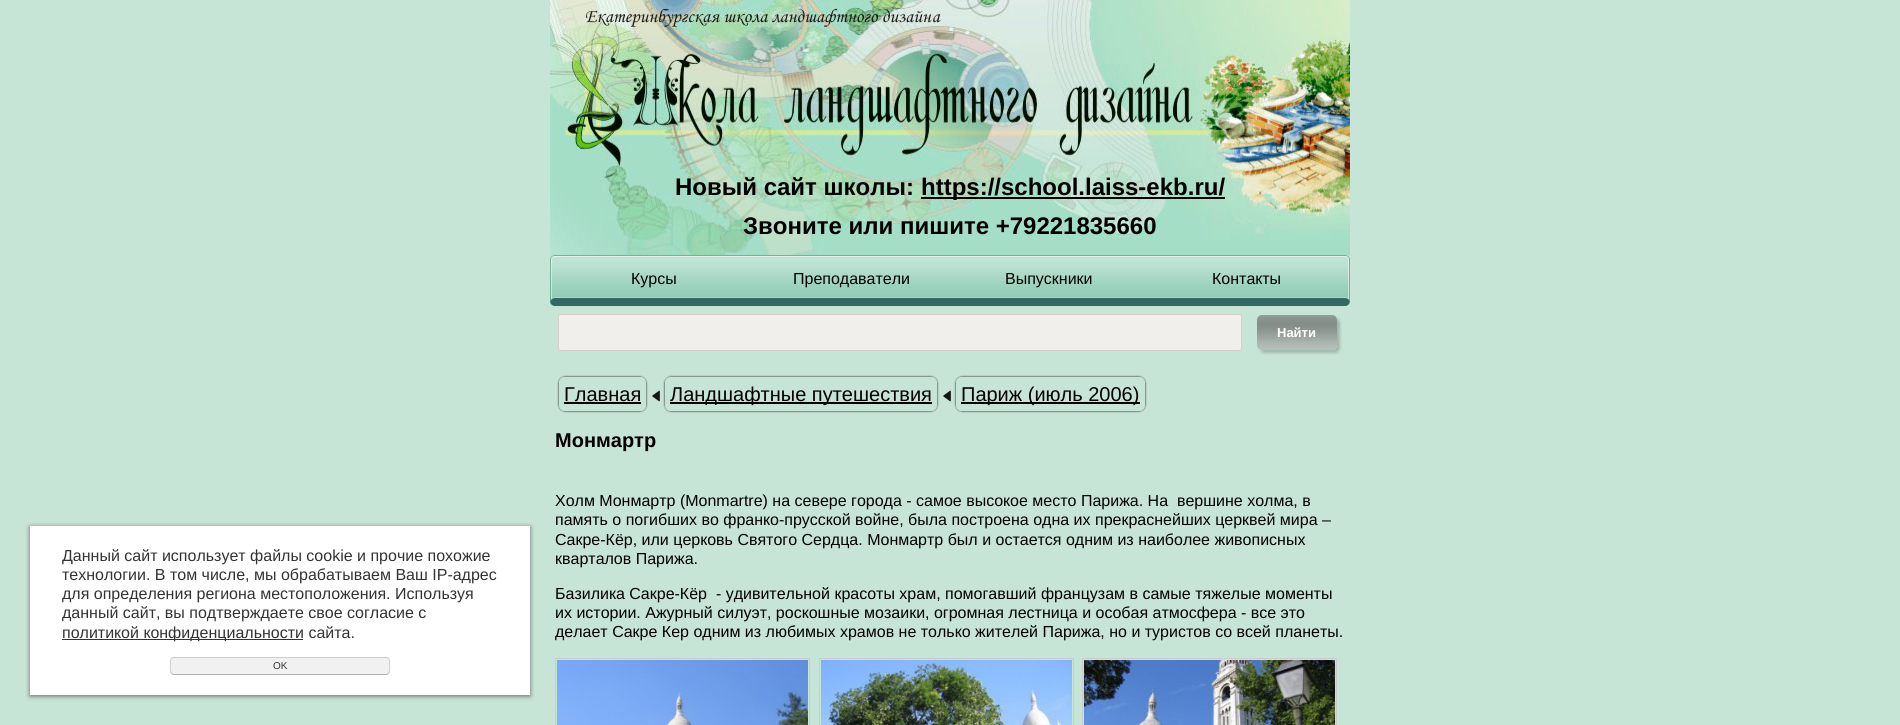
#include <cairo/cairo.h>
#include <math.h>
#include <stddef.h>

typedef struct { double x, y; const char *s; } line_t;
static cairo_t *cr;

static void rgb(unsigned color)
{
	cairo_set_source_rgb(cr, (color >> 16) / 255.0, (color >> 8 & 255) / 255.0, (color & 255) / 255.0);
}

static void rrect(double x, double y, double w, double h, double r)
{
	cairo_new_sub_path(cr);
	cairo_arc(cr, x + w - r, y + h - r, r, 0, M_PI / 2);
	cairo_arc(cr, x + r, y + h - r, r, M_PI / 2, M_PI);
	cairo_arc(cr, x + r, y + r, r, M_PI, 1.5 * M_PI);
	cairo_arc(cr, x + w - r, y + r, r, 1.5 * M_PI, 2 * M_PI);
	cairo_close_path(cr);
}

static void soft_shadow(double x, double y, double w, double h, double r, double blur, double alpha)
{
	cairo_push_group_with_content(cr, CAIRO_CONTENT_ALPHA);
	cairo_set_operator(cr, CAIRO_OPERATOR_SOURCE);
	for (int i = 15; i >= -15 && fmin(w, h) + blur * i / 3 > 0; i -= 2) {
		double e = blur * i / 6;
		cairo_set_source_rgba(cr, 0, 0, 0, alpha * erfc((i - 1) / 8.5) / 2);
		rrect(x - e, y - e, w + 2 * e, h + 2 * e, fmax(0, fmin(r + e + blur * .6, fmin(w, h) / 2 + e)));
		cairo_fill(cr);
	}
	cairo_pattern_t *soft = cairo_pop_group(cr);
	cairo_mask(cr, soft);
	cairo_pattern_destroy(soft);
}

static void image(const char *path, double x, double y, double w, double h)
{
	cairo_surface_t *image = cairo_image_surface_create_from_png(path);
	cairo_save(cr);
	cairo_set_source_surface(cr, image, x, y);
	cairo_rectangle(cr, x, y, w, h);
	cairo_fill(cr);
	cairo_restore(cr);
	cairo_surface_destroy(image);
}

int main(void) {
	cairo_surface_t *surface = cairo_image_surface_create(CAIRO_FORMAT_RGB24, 1900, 725);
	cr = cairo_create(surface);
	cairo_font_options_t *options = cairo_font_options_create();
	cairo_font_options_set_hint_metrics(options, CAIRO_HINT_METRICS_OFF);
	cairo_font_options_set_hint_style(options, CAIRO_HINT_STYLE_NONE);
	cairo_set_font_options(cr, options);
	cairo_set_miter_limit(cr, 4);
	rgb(0xc7e5d6);
	cairo_paint(cr);
	rgb(0x666666);
	soft_shadow(30, 527, 500, 169, 0, 2.5, 1);
	rgb(0xffffff);
	cairo_rectangle(cr, 30, 526, 500, 169);
	cairo_fill(cr);
	rgb(0x333333);
	cairo_rectangle(cr, 62, 639, 241, 1);
	cairo_fill(cr);
	rgb(0xf1f1f1);
	rrect(170, 657, 220, 18, 4);
	cairo_fill(cr);
	cairo_new_path(cr);
	cairo_move_to(cr, 388.5, 673.5);
	cairo_curve_to(cr, 388, 674, 387, 674.5, 386, 674.5);
	cairo_line_to(cr, 174, 674.5);
	cairo_curve_to(cr, 173, 674.5, 172, 674, 171.5, 673.5);
	rgb(0xb3b3b3);
	cairo_set_line_width(cr, 1);
	cairo_stroke(cr);
	cairo_new_path(cr);
	cairo_move_to(cr, 171.5, 673.5);
	cairo_curve_to(cr, 169.5, 671.5, 170.5, 663, 170.5, 660.5);
	cairo_curve_to(cr, 170.5, 659, 172, 657.5, 174, 657.5);
	cairo_line_to(cr, 386, 657.5);
	cairo_curve_to(cr, 388, 657.5, 389.5, 659, 389.5, 660.5);
	cairo_curve_to(cr, 389.5, 663, 390.5, 671.5, 388.5, 673.5);
	rgb(0xcccccc);
	cairo_stroke(cr);
	image("img/1.png", 550, 0, 800, 255);
	rgb(0x000000);
	cairo_rectangle(cr, 921, 197, 304, 2);
	cairo_fill(cr);
	image("img/2.png", 550, 255, 800, 51);
	rgb(0xf0efec);
	rrect(558.5, 314.5, 683, 36, 2.5);
	cairo_fill_preserve(cr);
	rgb(0xd1d0cd);
	cairo_stroke(cr);
	cairo_save(cr);
	cairo_set_fill_rule(cr, CAIRO_FILL_RULE_EVEN_ODD);
	cairo_new_path(cr);
	cairo_move_to(cr, 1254, 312);
	cairo_line_to(cr, 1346, 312);
	cairo_line_to(cr, 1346, 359);
	cairo_line_to(cr, 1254, 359);
	cairo_close_path(cr);
	cairo_move_to(cr, 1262, 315);
	cairo_line_to(cr, 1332, 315);
	cairo_curve_to(cr, 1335, 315, 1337, 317, 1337, 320);
	cairo_line_to(cr, 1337, 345);
	cairo_curve_to(cr, 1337, 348, 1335, 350, 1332, 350);
	cairo_line_to(cr, 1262, 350);
	cairo_curve_to(cr, 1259, 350, 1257, 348, 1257, 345);
	cairo_line_to(cr, 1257, 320);
	cairo_curve_to(cr, 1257, 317, 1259, 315, 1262, 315);
	cairo_close_path(cr);
	cairo_clip(cr);
	rgb(0x000000);
	soft_shadow(1260, 318, 80, 35, 5, 1.5, 0.2);
	cairo_restore(cr);
	image("img/3.png", 1257, 315, 80, 35);
	cairo_save(cr);
	cairo_set_fill_rule(cr, CAIRO_FILL_RULE_EVEN_ODD);
	cairo_new_path(cr);
	cairo_move_to(cr, 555, 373);
	cairo_line_to(cr, 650, 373);
	cairo_line_to(cr, 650, 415);
	cairo_line_to(cr, 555, 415);
	cairo_close_path(cr);
	cairo_move_to(cr, 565, 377);
	cairo_line_to(cr, 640, 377);
	cairo_curve_to(cr, 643.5, 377, 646, 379.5, 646, 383);
	cairo_line_to(cr, 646, 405);
	cairo_curve_to(cr, 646, 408.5, 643.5, 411, 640, 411);
	cairo_line_to(cr, 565, 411);
	cairo_curve_to(cr, 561.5, 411, 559, 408.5, 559, 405);
	cairo_line_to(cr, 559, 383);
	cairo_curve_to(cr, 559, 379.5, 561.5, 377, 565, 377);
	cairo_close_path(cr);
	cairo_clip(cr);
	rgb(0x000000);
	soft_shadow(559, 377, 87, 34, 6, 1, 1);
	cairo_restore(cr);
	rgb(0x000000);
	cairo_rectangle(cr, 564, 402, 77, 2);
	cairo_fill(cr);
	image("img/4.png", 652, 390, 8, 12);
	cairo_save(cr);
	cairo_set_fill_rule(cr, CAIRO_FILL_RULE_EVEN_ODD);
	cairo_new_path(cr);
	cairo_move_to(cr, 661, 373);
	cairo_line_to(cr, 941, 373);
	cairo_line_to(cr, 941, 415);
	cairo_line_to(cr, 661, 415);
	cairo_close_path(cr);
	cairo_move_to(cr, 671, 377);
	cairo_line_to(cr, 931, 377);
	cairo_curve_to(cr, 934.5, 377, 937, 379.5, 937, 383);
	cairo_line_to(cr, 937, 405);
	cairo_curve_to(cr, 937, 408.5, 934.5, 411, 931, 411);
	cairo_line_to(cr, 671, 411);
	cairo_curve_to(cr, 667.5, 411, 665, 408.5, 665, 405);
	cairo_line_to(cr, 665, 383);
	cairo_curve_to(cr, 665, 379.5, 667.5, 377, 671, 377);
	cairo_close_path(cr);
	cairo_clip(cr);
	rgb(0x000000);
	soft_shadow(665, 377, 272, 34, 6, 1, 1);
	cairo_restore(cr);
	cairo_rectangle(cr, 670, 402, 262, 2);
	cairo_fill(cr);
	image("img/4.png", 943, 390, 8, 12);
	cairo_save(cr);
	cairo_set_fill_rule(cr, CAIRO_FILL_RULE_EVEN_ODD);
	cairo_new_path(cr);
	cairo_move_to(cr, 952, 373);
	cairo_line_to(cr, 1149, 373);
	cairo_line_to(cr, 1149, 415);
	cairo_line_to(cr, 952, 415);
	cairo_close_path(cr);
	cairo_move_to(cr, 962, 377);
	cairo_line_to(cr, 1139, 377);
	cairo_curve_to(cr, 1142.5, 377, 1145, 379.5, 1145, 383);
	cairo_line_to(cr, 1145, 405);
	cairo_curve_to(cr, 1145, 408.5, 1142.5, 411, 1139, 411);
	cairo_line_to(cr, 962, 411);
	cairo_curve_to(cr, 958.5, 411, 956, 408.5, 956, 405);
	cairo_line_to(cr, 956, 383);
	cairo_curve_to(cr, 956, 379.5, 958.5, 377, 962, 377);
	cairo_close_path(cr);
	cairo_clip(cr);
	rgb(0x000000);
	soft_shadow(956, 377, 189, 34, 6, 1, 1);
	cairo_restore(cr);
	cairo_rectangle(cr, 961, 402, 179, 2);
	cairo_fill(cr);
	cairo_rectangle(cr, 555.5, 658.5, 254, 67);
	rgb(0xcccccc);
	cairo_stroke(cr);
	image("img/5.png", 557, 660, 251, 65);
	cairo_rectangle(cr, 819.5, 658.5, 254, 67);
	cairo_stroke(cr);
	image("img/6.png", 821, 660, 251, 65);
	cairo_rectangle(cr, 1082.5, 658.5, 254, 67);
	cairo_stroke(cr);
	image("img/7.png", 1084, 660, 251, 65);
	cairo_select_font_face(cr, "Liberation Sans", CAIRO_FONT_SLANT_NORMAL, CAIRO_FONT_WEIGHT_NORMAL);
	cairo_set_font_size(cr, 16);
	rgb(0x333333);
	{
		static const line_t items[] = {
			{62, 561, "Данный сайт использует файлы cookie и прочие похожие"},
			{62, 580, "технологии. В том числе, мы обрабатываем Ваш IP-адрес"},
			{62, 599, "для определения региона местоположения. Используя"},
			{62, 618, "данный сайт, вы подтверждаете свое согласие с"},
			{62, 638, "политикой конфиденциальности сайта."},
		};
		for (size_t i = 0; i < sizeof items / sizeof *items; i++) {
			cairo_move_to(cr, items[i].x, items[i].y);
			cairo_show_text(cr, items[i].s);
		}
	}
	cairo_set_font_size(cr, 10);
	cairo_move_to(cr, 273, 669);
	cairo_show_text(cr, "OK");
	cairo_select_font_face(cr, "Liberation Sans", CAIRO_FONT_SLANT_NORMAL, CAIRO_FONT_WEIGHT_BOLD);
	cairo_set_font_size(cr, 24);
	rgb(0x000000);
	{
		static const line_t items[] = {
			{675, 195, "Новый сайт школы:"},
			{921, 195, "https://school.laiss-ekb.ru/"},
			{743, 234, "Звоните или пишите +79221835660"},
		};
		for (size_t i = 0; i < sizeof items / sizeof *items; i++) {
			cairo_move_to(cr, items[i].x, items[i].y);
			cairo_show_text(cr, items[i].s);
		}
	}
	cairo_select_font_face(cr, "Liberation Sans", CAIRO_FONT_SLANT_NORMAL, CAIRO_FONT_WEIGHT_NORMAL);
	cairo_set_font_size(cr, 16);
	{
		static const line_t items[] = {
			{631, 284, "Курсы"},
			{793, 284, "Преподаватели"},
			{1005, 284, "Выпускники"},
			{1212, 284, "Контакты"},
		};
		for (size_t i = 0; i < sizeof items / sizeof *items; i++) {
			cairo_move_to(cr, items[i].x, items[i].y);
			cairo_show_text(cr, items[i].s);
		}
	}
	cairo_select_font_face(cr, "Liberation Sans", CAIRO_FONT_SLANT_NORMAL, CAIRO_FONT_WEIGHT_BOLD);
	cairo_set_font_size(cr, 13);
	rgb(0xffffff);
	cairo_move_to(cr, 1277, 337);
	cairo_show_text(cr, "Найти");
	cairo_select_font_face(cr, "Liberation Sans", CAIRO_FONT_SLANT_NORMAL, CAIRO_FONT_WEIGHT_NORMAL);
	cairo_set_font_size(cr, 20);
	rgb(0x000000);
	{
		static const line_t items[] = {
			{564, 401, "Главная"},
			{670, 401, "Ландшафтные путешествия"},
			{961, 401, "Париж (июль 2006)"},
		};
		for (size_t i = 0; i < sizeof items / sizeof *items; i++) {
			cairo_move_to(cr, items[i].x, items[i].y);
			cairo_show_text(cr, items[i].s);
		}
	}
	cairo_select_font_face(cr, "Liberation Sans", CAIRO_FONT_SLANT_NORMAL, CAIRO_FONT_WEIGHT_BOLD);
	cairo_move_to(cr, 555, 447);
	cairo_show_text(cr, "Монмартр");
	cairo_select_font_face(cr, "Liberation Sans", CAIRO_FONT_SLANT_NORMAL, CAIRO_FONT_WEIGHT_NORMAL);
	cairo_set_font_size(cr, 16);
	{
		static const line_t items[] = {
			{555, 506, "Холм Монмартр (Monmartre) на севере города - самое высокое место Парижа. На  вершине холма, в"},
			{555, 525, "память о погибших во франко-прусской войне, была построена одна их прекраснейших церквей мира –"},
			{555, 545, "Сакре-Кёр, или церковь Святого Сердца. Монмартр был и остается одним из наиболее живописных"},
			{555, 564, "кварталов Парижа."},
			{555, 599, "Базилика Сакре-Кёр  - удивительной красоты храм, помогавший французам в самые тяжелые моменты"},
			{555, 618, "их истории. Ажурный силуэт, роскошные мозаики, огромная лестница и особая атмосфера - все это"},
			{555, 637, "делает Сакре Кер одним из любимых храмов не только жителей Парижа, но и туристов со всей планеты."},
		};
		for (size_t i = 0; i < sizeof items / sizeof *items; i++) {
			cairo_move_to(cr, items[i].x, items[i].y);
			cairo_show_text(cr, items[i].s);
		}
	}
	cairo_surface_write_to_png(surface, "page.png");
	cairo_font_options_destroy(options);
	cairo_destroy(cr);
	cairo_surface_destroy(surface);
	return 0;
}
